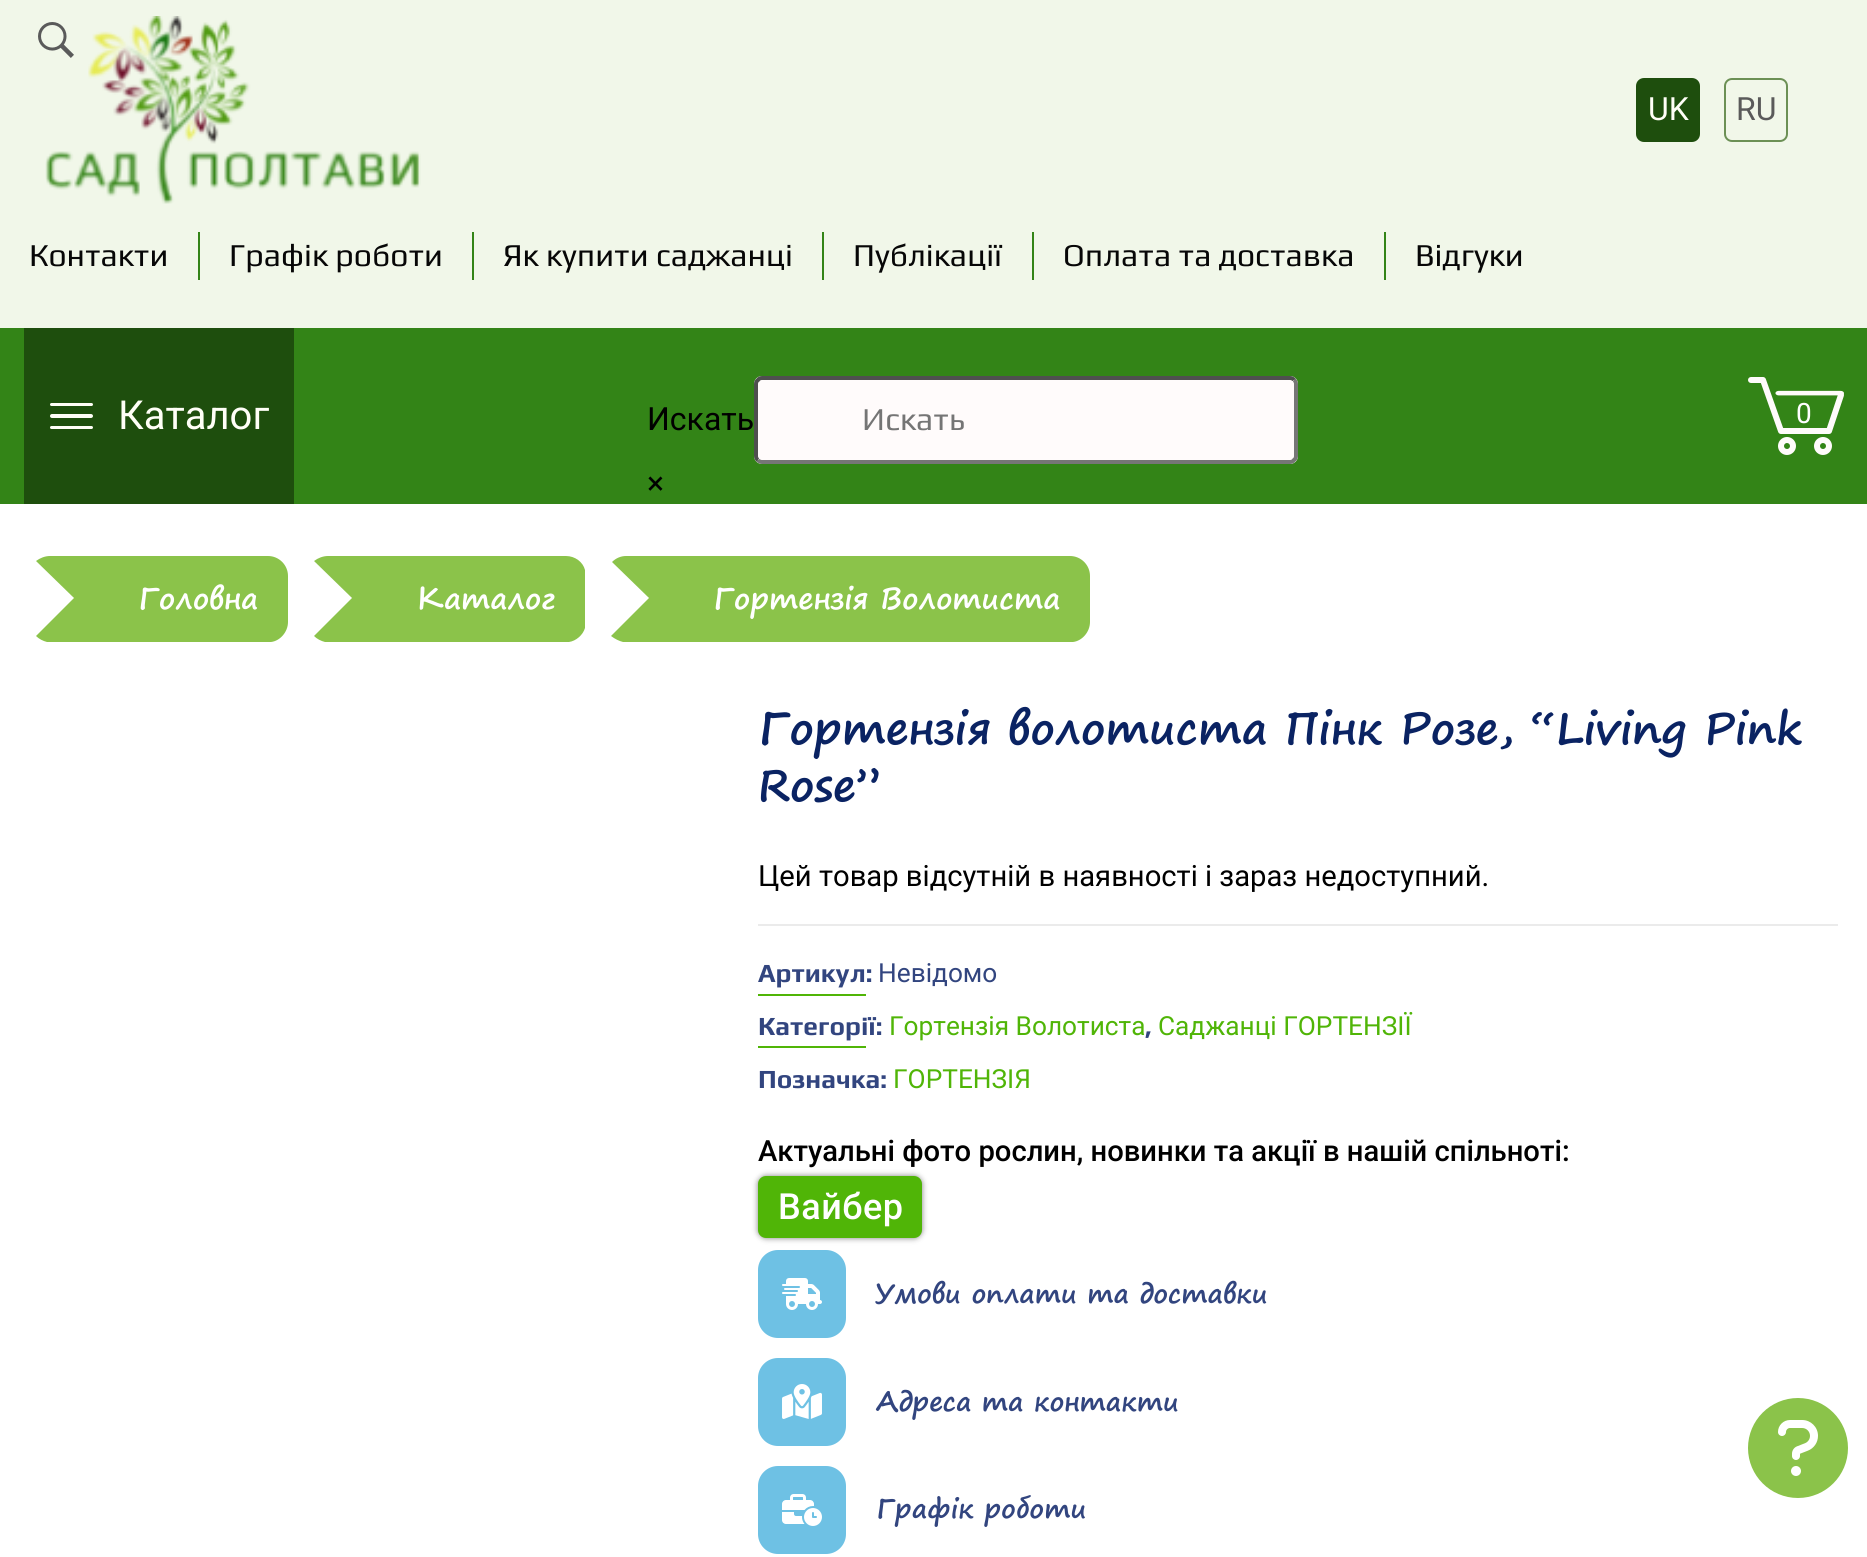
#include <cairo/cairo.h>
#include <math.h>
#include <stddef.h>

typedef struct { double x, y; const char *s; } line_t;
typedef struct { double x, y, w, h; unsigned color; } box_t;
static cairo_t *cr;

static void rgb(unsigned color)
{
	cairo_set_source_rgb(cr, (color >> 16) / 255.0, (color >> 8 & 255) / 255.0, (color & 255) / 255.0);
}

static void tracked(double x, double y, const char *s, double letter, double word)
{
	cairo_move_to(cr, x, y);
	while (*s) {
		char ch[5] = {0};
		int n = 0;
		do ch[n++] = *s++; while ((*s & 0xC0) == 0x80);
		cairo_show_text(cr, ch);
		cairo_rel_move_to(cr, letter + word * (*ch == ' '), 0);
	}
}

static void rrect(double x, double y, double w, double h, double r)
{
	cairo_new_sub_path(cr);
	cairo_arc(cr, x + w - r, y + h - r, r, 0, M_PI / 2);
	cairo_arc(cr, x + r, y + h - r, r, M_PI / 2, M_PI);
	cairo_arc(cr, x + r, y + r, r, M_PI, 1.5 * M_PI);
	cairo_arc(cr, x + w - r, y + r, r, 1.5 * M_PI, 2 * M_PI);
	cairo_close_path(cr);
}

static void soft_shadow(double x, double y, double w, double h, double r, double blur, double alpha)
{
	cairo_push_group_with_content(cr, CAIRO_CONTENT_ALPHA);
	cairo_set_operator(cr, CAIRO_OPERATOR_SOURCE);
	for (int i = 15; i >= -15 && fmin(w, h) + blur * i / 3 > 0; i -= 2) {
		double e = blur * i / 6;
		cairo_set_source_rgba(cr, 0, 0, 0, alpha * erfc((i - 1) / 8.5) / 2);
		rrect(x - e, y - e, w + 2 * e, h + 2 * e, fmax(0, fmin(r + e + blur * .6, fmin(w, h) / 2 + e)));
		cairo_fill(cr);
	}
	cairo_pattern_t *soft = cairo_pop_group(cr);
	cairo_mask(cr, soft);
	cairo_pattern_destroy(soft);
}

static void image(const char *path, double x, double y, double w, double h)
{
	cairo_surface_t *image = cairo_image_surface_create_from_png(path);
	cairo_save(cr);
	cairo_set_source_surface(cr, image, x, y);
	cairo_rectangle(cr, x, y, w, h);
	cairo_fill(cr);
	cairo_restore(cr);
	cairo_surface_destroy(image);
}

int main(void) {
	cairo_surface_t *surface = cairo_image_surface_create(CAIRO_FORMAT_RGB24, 1867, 1557);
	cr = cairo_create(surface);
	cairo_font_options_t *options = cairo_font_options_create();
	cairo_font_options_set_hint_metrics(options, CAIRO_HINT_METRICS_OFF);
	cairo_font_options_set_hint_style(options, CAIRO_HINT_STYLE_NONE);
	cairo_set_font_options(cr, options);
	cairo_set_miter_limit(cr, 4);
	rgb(0xffffff);
	cairo_paint(cr);
	rgb(0xf1f7e9);
	cairo_rectangle(cr, 0, 0, 1867, 328);
	cairo_fill(cr);
	image("img/1.png", 45, 16, 376, 188);
	rgb(0x1e4e0d);
	rrect(1637, 79, 62, 62, 7);
	cairo_fill_preserve(cr);
	cairo_stroke(cr);
	rrect(1725, 79, 62, 62, 7);
	rgb(0x6c9055);
	cairo_stroke(cr);
	{
		static const box_t items[] = {
			{198, 232, 2, 48, 0x338417},
			{472, 232, 2, 48, 0x338417},
			{822, 232, 2, 48, 0x338417},
			{1032, 232, 2, 48, 0x338417},
			{1384, 232, 2, 48, 0x338417},
			{0, 328, 1867, 176, 0x338417},
			{24, 328, 270, 176, 0x1e4e0d},
		};
		for (size_t i = 0; i < sizeof items / sizeof *items; i++) {
			rgb(items[i].color);
			cairo_rectangle(cr, items[i].x, items[i].y, items[i].w, items[i].h);
			cairo_fill(cr);
		}
	}
	rgb(0xfffff7);
	rrect(50, 403, 43, 3, 1.5);
	cairo_fill(cr);
	rrect(50, 414, 43, 4, 2);
	cairo_fill(cr);
	rrect(50, 426, 43, 3, 1.5);
	cairo_fill(cr);
	image("img/2.png", 38, 22, 36, 36);
	rgb(0xfffbfb);
	rrect(754, 376, 544, 88, 8);
	cairo_fill(cr);
	cairo_new_path(cr);
	cairo_move_to(cr, 1294, 380);
	cairo_curve_to(cr, 1295.5, 381, 1296, 382.5, 1296, 384);
	cairo_line_to(cr, 1296, 456);
	cairo_curve_to(cr, 1296, 457.5, 1295.5, 459, 1294, 460);
	cairo_curve_to(cr, 1293, 461.5, 1291.5, 462, 1290, 462);
	cairo_line_to(cr, 762, 462);
	cairo_curve_to(cr, 760.5, 462, 759, 461.5, 758, 460);
	rgb(0x767676);
	cairo_set_line_width(cr, 4);
	cairo_stroke(cr);
	cairo_new_path(cr);
	cairo_move_to(cr, 758, 460);
	cairo_curve_to(cr, 756.5, 459, 756, 457.5, 756, 456);
	cairo_line_to(cr, 756, 384);
	cairo_curve_to(cr, 756, 382.5, 756.5, 381, 758, 380);
	cairo_curve_to(cr, 759, 378.5, 760.5, 378, 762, 378);
	cairo_line_to(cr, 1290, 378);
	cairo_curve_to(cr, 1291.5, 378, 1293, 378.5, 1294, 380);
	rgb(0x4f4f4f);
	cairo_stroke(cr);
	image("img/3.png", 1748, 377, 96, 78);
	rgb(0x8bc34a);
	cairo_new_path(cr);
	cairo_move_to(cr, 50, 556);
	cairo_line_to(cr, 268, 556);
	cairo_curve_to(cr, 279, 556, 288, 565, 288, 576);
	cairo_line_to(cr, 288, 622);
	cairo_curve_to(cr, 288, 632, 280, 641, 271, 642);
	cairo_line_to(cr, 47, 642);
	cairo_curve_to(cr, 43, 641, 39, 639, 36, 636);
	cairo_line_to(cr, 74, 598);
	cairo_line_to(cr, 36, 561);
	cairo_curve_to(cr, 40, 558, 45, 556, 50, 556);
	cairo_close_path(cr);
	cairo_fill(cr);
	cairo_new_path(cr);
	cairo_move_to(cr, 328, 556);
	cairo_line_to(cr, 566, 556);
	cairo_curve_to(cr, 575, 556, 583, 562, 585, 570);
	cairo_line_to(cr, 585, 628);
	cairo_curve_to(cr, 583, 635, 576, 641, 569, 642);
	cairo_line_to(cr, 325, 642);
	cairo_curve_to(cr, 321, 641, 317, 639, 314, 636);
	cairo_line_to(cr, 352, 598);
	cairo_line_to(cr, 314, 561);
	cairo_curve_to(cr, 318, 558, 323, 556, 328, 556);
	cairo_close_path(cr);
	cairo_fill(cr);
	cairo_new_path(cr);
	cairo_move_to(cr, 626, 556);
	cairo_line_to(cr, 1070, 556);
	cairo_curve_to(cr, 1081, 556, 1090, 565, 1090, 576);
	cairo_line_to(cr, 1090, 622);
	cairo_curve_to(cr, 1090, 632, 1082, 641, 1073, 642);
	cairo_line_to(cr, 623, 642);
	cairo_curve_to(cr, 619, 641, 615, 639, 611, 636);
	cairo_line_to(cr, 649, 598);
	cairo_line_to(cr, 612, 562);
	cairo_curve_to(cr, 616, 558, 621, 556, 626, 556);
	cairo_close_path(cr);
	cairo_fill(cr);
	{
		static const box_t items[] = {
			{758, 924, 1080, 2, 0xebebeb},
			{758, 994, 108, 2, 0x50b507},
			{758, 1046, 108, 2, 0x50b507},
		};
		for (size_t i = 0; i < sizeof items / sizeof *items; i++) {
			rgb(items[i].color);
			cairo_rectangle(cr, items[i].x, items[i].y, items[i].w, items[i].h);
			cairo_fill(cr);
		}
	}
	rgb(0x000000);
	soft_shadow(758, 1176, 164, 62, 8, 3, 0.5);
	rgb(0x50b507);
	rrect(758, 1176, 164, 62, 8);
	cairo_fill(cr);
	rgb(0x6ec1e4);
	rrect(758, 1250, 88, 88, 20);
	cairo_fill(cr);
	image("img/4.png", 782, 1278, 40, 32);
	rrect(758, 1358, 88, 88, 20);
	cairo_fill(cr);
	image("img/5.png", 782, 1384, 40, 35);
	rrect(758, 1466, 88, 88, 20);
	cairo_fill(cr);
	image("img/6.png", 782, 1494, 40, 32);
	rgb(0x8bc34a);
	cairo_arc(cr, 1798, 1448, 50, 0, 2 * M_PI);
	cairo_fill(cr);
	image("img/7.png", 1778, 1420, 40, 56);
	cairo_select_font_face(cr, "Roboto", CAIRO_FONT_SLANT_NORMAL, CAIRO_FONT_WEIGHT_NORMAL);
	cairo_set_font_size(cr, 32);
	rgb(0xfffff7);
	cairo_move_to(cr, 1648, 120);
	cairo_show_text(cr, "UK");
	rgb(0x5a5a5a);
	cairo_move_to(cr, 1736, 120);
	cairo_show_text(cr, "RU");
	cairo_select_font_face(cr, "Play", CAIRO_FONT_SLANT_NORMAL, CAIRO_FONT_WEIGHT_NORMAL);
	rgb(0x070707);
	{
		static const line_t items[] = {
			{29, 266, "Контакти"},
			{229, 266, "Графік роботи"},
			{503, 266, "Як купити саджанці"},
			{853, 266, "Публікації"},
			{1063, 266, "Оплата та доставка"},
			{1415, 266, "Відгуки"},
		};
		for (size_t i = 0; i < sizeof items / sizeof *items; i++) {
			cairo_move_to(cr, items[i].x, items[i].y);
			cairo_show_text(cr, items[i].s);
		}
	}
	cairo_select_font_face(cr, "Roboto", CAIRO_FONT_SLANT_NORMAL, CAIRO_FONT_WEIGHT_NORMAL);
	cairo_set_font_size(cr, 40);
	rgb(0xfffff7);
	cairo_move_to(cr, 118, 429);
	cairo_show_text(cr, "Каталог");
	cairo_set_font_size(cr, 32);
	rgb(0x000000);
	cairo_move_to(cr, 647, 430);
	cairo_show_text(cr, "Искать");
	cairo_select_font_face(cr, "Play", CAIRO_FONT_SLANT_NORMAL, CAIRO_FONT_WEIGHT_NORMAL);
	rgb(0x757575);
	cairo_move_to(cr, 862, 430);
	cairo_show_text(cr, "Искать");
	cairo_select_font_face(cr, "Roboto", CAIRO_FONT_SLANT_NORMAL, CAIRO_FONT_WEIGHT_NORMAL);
	rgb(0x000000);
	cairo_move_to(cr, 647, 494);
	cairo_show_text(cr, "×");
	cairo_set_font_size(cr, 28);
	rgb(0xffffff);
	cairo_move_to(cr, 1796, 423);
	cairo_show_text(cr, "0");
	cairo_select_font_face(cr, "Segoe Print", CAIRO_FONT_SLANT_NORMAL, CAIRO_FONT_WEIGHT_BOLD);
	cairo_set_font_size(cr, 29.2);
	{
		static const line_t items[] = {
			{138, 609, "Головна"},
			{416, 609, "Каталог"},
			{713, 609, "Гортензія Волотиста"},
		};
		for (size_t i = 0; i < sizeof items / sizeof *items; i++) {
			cairo_move_to(cr, items[i].x, items[i].y);
			cairo_show_text(cr, items[i].s);
		}
	}
	cairo_set_font_size(cr, 43.75);
	rgb(0x0a2363);
	cairo_move_to(cr, 758, 744);
	cairo_show_text(cr, "Гортензія волотиста Пінк Розе, “Living Pink");
	cairo_move_to(cr, 758, 801);
	cairo_show_text(cr, "Rose”");
	cairo_select_font_face(cr, "Roboto", CAIRO_FONT_SLANT_NORMAL, CAIRO_FONT_WEIGHT_NORMAL);
	cairo_set_font_size(cr, 29.2);
	rgb(0x000000);
	cairo_move_to(cr, 758, 886);
	cairo_show_text(cr, "Цей товар відсутній в наявності і зараз недоступний.");
	cairo_select_font_face(cr, "Play", CAIRO_FONT_SLANT_NORMAL, CAIRO_FONT_WEIGHT_BOLD);
	cairo_set_font_size(cr, 26.25);
	rgb(0x32457f);
	cairo_move_to(cr, 758, 982);
	cairo_show_text(cr, "Артикул:");
	cairo_select_font_face(cr, "Roboto", CAIRO_FONT_SLANT_NORMAL, CAIRO_FONT_WEIGHT_NORMAL);
	cairo_move_to(cr, 878, 982);
	cairo_show_text(cr, "Невідомо");
	cairo_select_font_face(cr, "Play", CAIRO_FONT_SLANT_NORMAL, CAIRO_FONT_WEIGHT_BOLD);
	cairo_move_to(cr, 758, 1035);
	cairo_show_text(cr, "Категорії:");
	cairo_select_font_face(cr, "Roboto", CAIRO_FONT_SLANT_NORMAL, CAIRO_FONT_WEIGHT_NORMAL);
	rgb(0x50b507);
	cairo_move_to(cr, 889, 1035);
	cairo_show_text(cr, "Гортензія Волотиста");
	cairo_select_font_face(cr, "Play", CAIRO_FONT_SLANT_NORMAL, CAIRO_FONT_WEIGHT_BOLD);
	rgb(0x32457f);
	cairo_move_to(cr, 1145, 1035);
	cairo_show_text(cr, ",");
	cairo_select_font_face(cr, "Roboto", CAIRO_FONT_SLANT_NORMAL, CAIRO_FONT_WEIGHT_NORMAL);
	rgb(0x50b507);
	cairo_move_to(cr, 1158, 1035);
	cairo_show_text(cr, "Саджанці ГОРТЕНЗІЇ");
	cairo_select_font_face(cr, "Play", CAIRO_FONT_SLANT_NORMAL, CAIRO_FONT_WEIGHT_BOLD);
	rgb(0x32457f);
	cairo_move_to(cr, 758, 1088);
	cairo_show_text(cr, "Позначка:");
	cairo_select_font_face(cr, "Roboto", CAIRO_FONT_SLANT_NORMAL, CAIRO_FONT_WEIGHT_NORMAL);
	rgb(0x50b507);
	cairo_move_to(cr, 893, 1088);
	cairo_show_text(cr, "ГОРТЕНЗІЯ");
	cairo_select_font_face(cr, "Roboto Medium", CAIRO_FONT_SLANT_NORMAL, CAIRO_FONT_WEIGHT_NORMAL);
	cairo_set_font_size(cr, 29.2);
	rgb(0x000000);
	cairo_move_to(cr, 758, 1161);
	cairo_show_text(cr, "Актуальні фото рослин, новинки та акції в нашій спільноті:");
	cairo_set_font_size(cr, 36);
	rgb(0xffffff);
	tracked(778, 1219, "Вайбер", 0.5, 0);
	cairo_select_font_face(cr, "Segoe Print", CAIRO_FONT_SLANT_NORMAL, CAIRO_FONT_WEIGHT_BOLD);
	cairo_set_font_size(cr, 26.25);
	rgb(0x32457f);
	{
		static const line_t items[] = {
			{876, 1303, "Умови оплати та доставки"},
			{876, 1411, "Адреса та контакти"},
			{876, 1518, "Графік роботи"},
		};
		for (size_t i = 0; i < sizeof items / sizeof *items; i++) {
			cairo_move_to(cr, items[i].x, items[i].y);
			cairo_show_text(cr, items[i].s);
		}
	}
	cairo_surface_write_to_png(surface, "page.png");
	cairo_font_options_destroy(options);
	cairo_destroy(cr);
	cairo_surface_destroy(surface);
	return 0;
}
